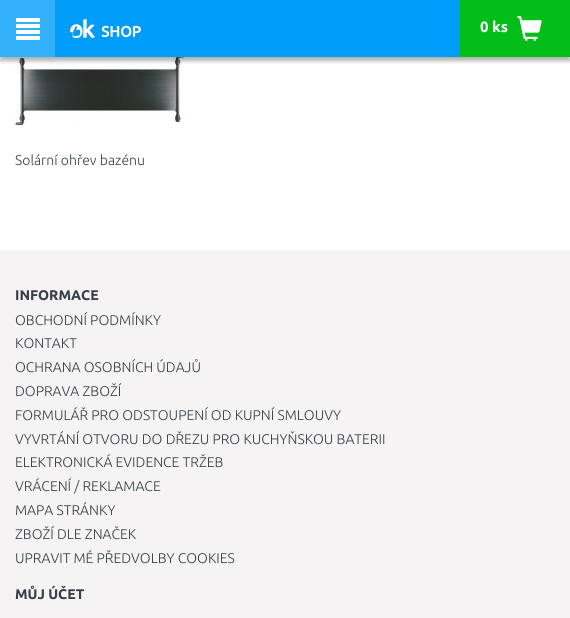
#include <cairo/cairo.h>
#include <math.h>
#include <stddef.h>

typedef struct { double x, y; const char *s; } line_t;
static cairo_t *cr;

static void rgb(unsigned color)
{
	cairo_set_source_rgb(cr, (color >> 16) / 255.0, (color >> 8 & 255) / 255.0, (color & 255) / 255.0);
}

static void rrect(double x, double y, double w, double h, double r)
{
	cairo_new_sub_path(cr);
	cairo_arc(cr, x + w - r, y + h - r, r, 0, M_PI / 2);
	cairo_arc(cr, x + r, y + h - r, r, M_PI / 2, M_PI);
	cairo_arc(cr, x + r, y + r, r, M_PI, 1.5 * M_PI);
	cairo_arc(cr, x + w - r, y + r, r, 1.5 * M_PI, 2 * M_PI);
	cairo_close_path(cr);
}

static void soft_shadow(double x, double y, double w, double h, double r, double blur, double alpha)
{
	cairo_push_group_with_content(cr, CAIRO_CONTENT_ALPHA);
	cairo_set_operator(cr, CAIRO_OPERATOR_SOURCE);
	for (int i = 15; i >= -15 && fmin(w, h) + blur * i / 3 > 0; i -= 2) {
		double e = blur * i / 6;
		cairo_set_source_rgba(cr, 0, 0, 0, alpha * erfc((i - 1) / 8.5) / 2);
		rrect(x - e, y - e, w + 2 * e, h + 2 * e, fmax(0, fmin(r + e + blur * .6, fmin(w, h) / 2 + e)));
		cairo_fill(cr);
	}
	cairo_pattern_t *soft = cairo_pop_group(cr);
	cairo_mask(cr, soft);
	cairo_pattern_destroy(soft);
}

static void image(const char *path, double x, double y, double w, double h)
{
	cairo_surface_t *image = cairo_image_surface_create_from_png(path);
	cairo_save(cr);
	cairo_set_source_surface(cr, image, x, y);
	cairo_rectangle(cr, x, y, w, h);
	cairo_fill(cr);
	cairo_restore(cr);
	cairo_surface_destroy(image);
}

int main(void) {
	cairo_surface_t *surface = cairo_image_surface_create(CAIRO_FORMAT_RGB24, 570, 618);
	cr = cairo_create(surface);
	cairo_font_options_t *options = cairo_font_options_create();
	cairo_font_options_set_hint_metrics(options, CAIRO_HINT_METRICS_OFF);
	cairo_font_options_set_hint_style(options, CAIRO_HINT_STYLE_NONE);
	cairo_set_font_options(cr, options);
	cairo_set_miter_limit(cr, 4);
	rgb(0xffffff);
	cairo_paint(cr);
	image("img/4.png", 15, 57, 170, 70);
	rgb(0x000000);
	soft_shadow(0, 4, 570, 57, 0, 2, 0.3);
	rgb(0x009cf9);
	cairo_rectangle(cr, 55, 0, 405, 57);
	cairo_fill(cr);
	rgb(0x33b0fa);
	cairo_rectangle(cr, 0, 0, 55, 57);
	cairo_fill(cr);
	image("img/1.png", 16, 18, 24, 22);
	image("img/2.png", 70, 19, 71, 19);
	rgb(0x03be19);
	cairo_rectangle(cr, 460, 0, 110, 57);
	cairo_fill(cr);
	image("img/3.png", 517, 16, 25, 25);
	rgb(0xf5f3f4);
	cairo_rectangle(cr, 0, 250, 570, 368);
	cairo_fill(cr);
	cairo_select_font_face(cr, "Ubuntu", CAIRO_FONT_SLANT_NORMAL, CAIRO_FONT_WEIGHT_BOLD);
	cairo_set_font_size(cr, 15);
	rgb(0xffffff);
	cairo_move_to(cr, 480, 32);
	cairo_show_text(cr, "0 ks");
	cairo_select_font_face(cr, "Ubuntu Light", CAIRO_FONT_SLANT_NORMAL, CAIRO_FONT_WEIGHT_NORMAL);
	cairo_set_font_size(cr, 14);
	rgb(0x374046);
	cairo_move_to(cr, 15, 165);
	cairo_show_text(cr, "Solární ohřev bazénu");
	cairo_select_font_face(cr, "Ubuntu", CAIRO_FONT_SLANT_NORMAL, CAIRO_FONT_WEIGHT_BOLD);
	cairo_move_to(cr, 15, 300);
	cairo_show_text(cr, "INFORMACE");
	cairo_select_font_face(cr, "Ubuntu Light", CAIRO_FONT_SLANT_NORMAL, CAIRO_FONT_WEIGHT_NORMAL);
	{
		static const line_t items[] = {
			{15, 325, "OBCHODNÍ PODMÍNKY"},
			{15, 348, "KONTAKT"},
			{15, 372, "OCHRANA OSOBNÍCH ÚDAJŮ"},
			{15, 396, "DOPRAVA ZBOŽÍ"},
			{15, 420, "FORMULÁŘ PRO ODSTOUPENÍ OD KUPNÍ SMLOUVY"},
			{15, 444, "VYVRTÁNÍ OTVORU DO DŘEZU PRO KUCHYŇSKOU BATERII"},
			{15, 467, "ELEKTRONICKÁ EVIDENCE TRŽEB"},
			{15, 491, "VRÁCENÍ / REKLAMACE"},
			{15, 515, "MAPA STRÁNKY"},
			{15, 539, "ZBOŽÍ DLE ZNAČEK"},
			{15, 563, "UPRAVIT MÉ PŘEDVOLBY COOKIES"},
		};
		for (size_t i = 0; i < sizeof items / sizeof *items; i++) {
			cairo_move_to(cr, items[i].x, items[i].y);
			cairo_show_text(cr, items[i].s);
		}
	}
	cairo_select_font_face(cr, "Ubuntu", CAIRO_FONT_SLANT_NORMAL, CAIRO_FONT_WEIGHT_BOLD);
	cairo_move_to(cr, 15, 599);
	cairo_show_text(cr, "MŮJ ÚČET");
	cairo_surface_write_to_png(surface, "page.png");
	cairo_font_options_destroy(options);
	cairo_destroy(cr);
	cairo_surface_destroy(surface);
	return 0;
}
